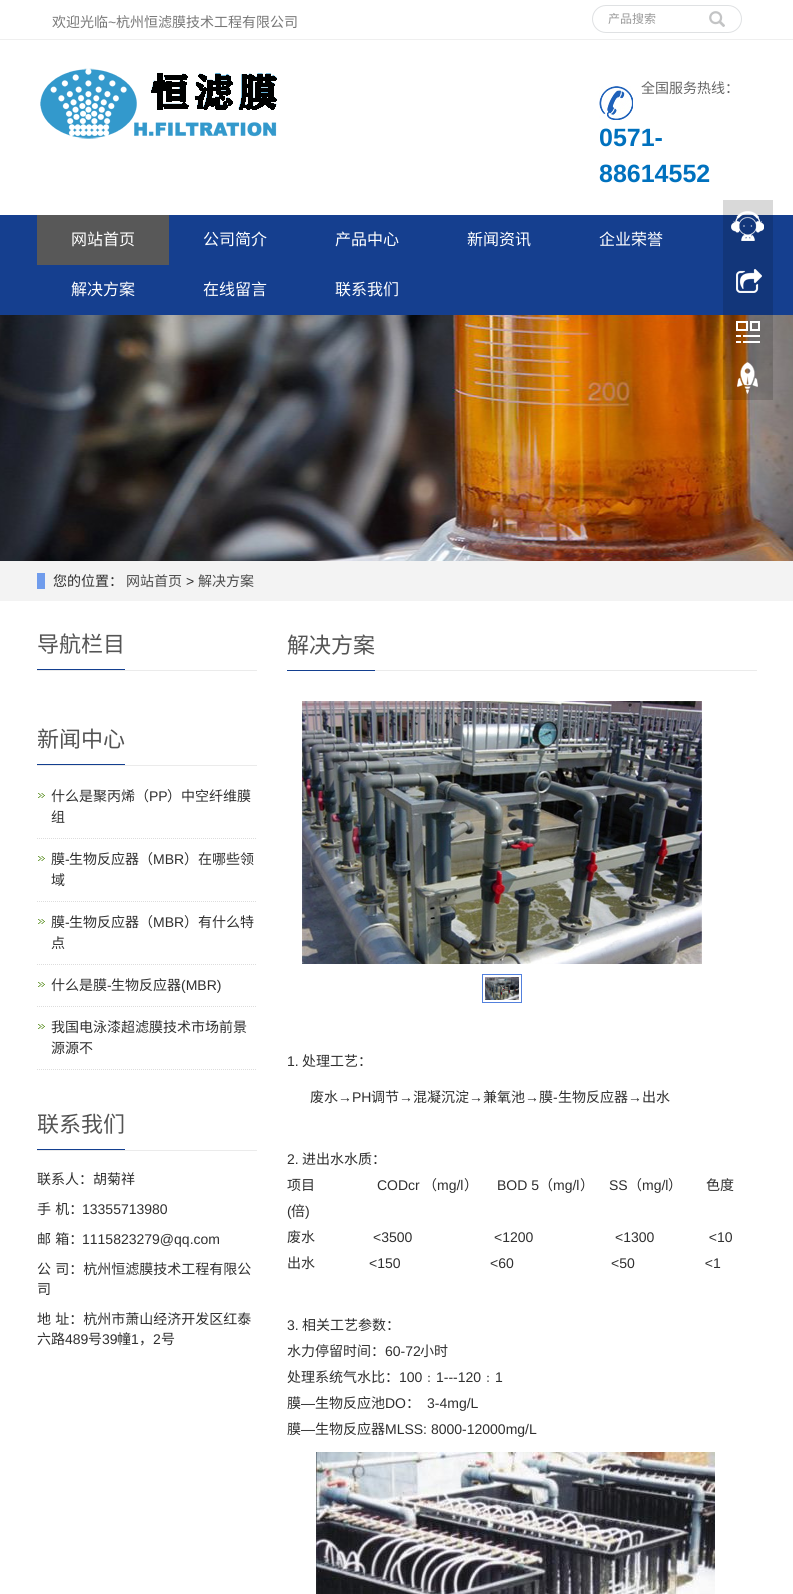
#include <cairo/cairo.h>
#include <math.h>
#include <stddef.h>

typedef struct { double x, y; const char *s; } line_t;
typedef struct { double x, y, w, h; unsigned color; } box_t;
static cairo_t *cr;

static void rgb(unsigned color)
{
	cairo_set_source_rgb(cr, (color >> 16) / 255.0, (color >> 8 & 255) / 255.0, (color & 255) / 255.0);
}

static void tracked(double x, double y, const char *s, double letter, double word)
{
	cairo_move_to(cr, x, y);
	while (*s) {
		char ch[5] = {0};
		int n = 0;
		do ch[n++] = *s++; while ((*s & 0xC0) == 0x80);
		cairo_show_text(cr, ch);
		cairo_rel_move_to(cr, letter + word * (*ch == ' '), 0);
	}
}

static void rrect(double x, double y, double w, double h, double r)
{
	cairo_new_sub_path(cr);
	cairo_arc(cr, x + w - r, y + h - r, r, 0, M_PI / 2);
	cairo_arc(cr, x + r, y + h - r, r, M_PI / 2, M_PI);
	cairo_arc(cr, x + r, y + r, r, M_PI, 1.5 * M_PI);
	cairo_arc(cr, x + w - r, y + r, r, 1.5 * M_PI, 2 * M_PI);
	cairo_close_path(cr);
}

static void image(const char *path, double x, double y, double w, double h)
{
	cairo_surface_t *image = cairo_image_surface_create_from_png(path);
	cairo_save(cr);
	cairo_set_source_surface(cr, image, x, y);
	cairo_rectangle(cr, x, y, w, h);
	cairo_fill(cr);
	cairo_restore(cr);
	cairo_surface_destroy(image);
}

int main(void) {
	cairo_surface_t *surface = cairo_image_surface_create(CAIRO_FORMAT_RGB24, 793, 1594);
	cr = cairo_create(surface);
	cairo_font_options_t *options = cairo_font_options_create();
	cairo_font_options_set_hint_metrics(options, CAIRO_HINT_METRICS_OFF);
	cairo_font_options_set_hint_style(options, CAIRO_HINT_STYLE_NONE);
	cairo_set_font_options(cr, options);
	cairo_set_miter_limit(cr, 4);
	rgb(0xffffff);
	cairo_paint(cr);
	rgb(0xefefef);
	cairo_rectangle(cr, 0, 39, 793, 1);
	cairo_fill(cr);
	rrect(592.5, 5.5, 149, 27, 13.5);
	rgb(0xdfe1e3);
	cairo_set_line_width(cr, 1);
	cairo_stroke(cr);
	image("img/1.png", 709, 11, 16, 16);
	image("img/2.png", 40, 68, 237, 71);
	image("img/3.png", 599, 86, 34, 34);
	rgb(0x153f8f);
	cairo_rectangle(cr, 0, 215, 793, 100);
	cairo_fill(cr);
	rgb(0x585858);
	cairo_rectangle(cr, 37, 215, 132, 50);
	cairo_fill(cr);
	image("img/5.png", 0, 315, 793, 246);
	image("img/4.png", 723, 200, 50, 200);
	{
		static const box_t items[] = {
			{0, 561, 793, 40, 0xf3f3f3},
			{37, 573, 8, 16, 0x709cec},
			{37, 670, 220, 1, 0xebebeb},
			{37, 669, 88, 1, 0x133f90},
			{37, 765, 220, 1, 0xebebeb},
			{37, 764, 88, 1, 0x133f90},
		};
		for (size_t i = 0; i < sizeof items / sizeof *items; i++) {
			rgb(items[i].color);
			cairo_rectangle(cr, items[i].x, items[i].y, items[i].w, items[i].h);
			cairo_fill(cr);
		}
	}
	image("img/6.png", 38, 793, 7, 5);
	cairo_new_path(cr);
	cairo_move_to(cr, 37, 838.5);
	cairo_line_to(cr, 257, 838.5);
	rgb(0xdddddd);
	cairo_set_dash(cr, (double[]){1, 1}, 2, 0);
	cairo_stroke(cr);
	image("img/6.png", 38, 856, 7, 5);
	cairo_new_path(cr);
	cairo_move_to(cr, 37, 901.5);
	cairo_line_to(cr, 257, 901.5);
	cairo_stroke(cr);
	image("img/6.png", 38, 919, 7, 5);
	cairo_new_path(cr);
	cairo_move_to(cr, 37, 964.5);
	cairo_line_to(cr, 257, 964.5);
	cairo_stroke(cr);
	image("img/6.png", 38, 982, 7, 5);
	cairo_new_path(cr);
	cairo_move_to(cr, 37, 1006.5);
	cairo_line_to(cr, 257, 1006.5);
	cairo_stroke(cr);
	image("img/6.png", 38, 1024, 7, 5);
	cairo_new_path(cr);
	cairo_move_to(cr, 37, 1069.5);
	cairo_line_to(cr, 257, 1069.5);
	cairo_stroke(cr);
	{
		static const box_t items[] = {
			{37, 1150, 220, 1, 0xebebeb},
			{37, 1149, 88, 1, 0x133f90},
			{375, 670, 382, 1, 0xebebeb},
			{287, 670, 88, 1, 0x133f90},
		};
		for (size_t i = 0; i < sizeof items / sizeof *items; i++) {
			rgb(items[i].color);
			cairo_rectangle(cr, items[i].x, items[i].y, items[i].w, items[i].h);
			cairo_fill(cr);
		}
	}
	image("img/7.png", 302, 701, 400, 263);
	cairo_rectangle(cr, 482.5, 974.5, 39, 28);
	rgb(0x5280dd);
	cairo_set_dash(cr, NULL, 0, 0);
	cairo_stroke(cr);
	image("img/8.png", 485, 977, 34, 23);
	image("img/9.png", 316, 1452, 399, 142);
	cairo_select_font_face(cr, "Noto Sans CJK SC", CAIRO_FONT_SLANT_NORMAL, CAIRO_FONT_WEIGHT_NORMAL);
	cairo_set_font_size(cr, 14);
	rgb(0x777777);
	cairo_move_to(cr, 52, 27);
	cairo_show_text(cr, "欢迎光临");
	cairo_select_font_face(cr, "Liberation Sans", CAIRO_FONT_SLANT_NORMAL, CAIRO_FONT_WEIGHT_NORMAL);
	cairo_move_to(cr, 108, 27);
	cairo_show_text(cr, "~");
	cairo_select_font_face(cr, "Noto Sans CJK SC", CAIRO_FONT_SLANT_NORMAL, CAIRO_FONT_WEIGHT_NORMAL);
	cairo_move_to(cr, 116, 27);
	cairo_show_text(cr, "杭州恒滤膜技术工程有限公司");
	cairo_set_font_size(cr, 12);
	rgb(0x999999);
	cairo_move_to(cr, 608, 23);
	cairo_show_text(cr, "产品搜索");
	cairo_set_font_size(cr, 14);
	rgb(0x666666);
	cairo_move_to(cr, 641, 93);
	cairo_show_text(cr, "全国服务热线：");
	cairo_select_font_face(cr, "Liberation Sans", CAIRO_FONT_SLANT_NORMAL, CAIRO_FONT_WEIGHT_BOLD);
	cairo_set_font_size(cr, 25);
	rgb(0x0071be);
	cairo_move_to(cr, 599, 146);
	cairo_show_text(cr, "0571-");
	cairo_move_to(cr, 599, 182);
	cairo_show_text(cr, "88614552");
	cairo_select_font_face(cr, "Noto Sans CJK SC", CAIRO_FONT_SLANT_NORMAL, CAIRO_FONT_WEIGHT_NORMAL);
	cairo_set_font_size(cr, 16);
	rgb(0xffffff);
	{
		static const line_t items[] = {
			{71, 245, "网站首页"},
			{203, 245, "公司简介"},
			{335, 245, "产品中心"},
			{467, 245, "新闻资讯"},
			{599, 245, "企业荣誉"},
			{71, 295, "解决方案"},
			{203, 295, "在线留言"},
			{335, 295, "联系我们"},
		};
		for (size_t i = 0; i < sizeof items / sizeof *items; i++) {
			cairo_move_to(cr, items[i].x, items[i].y);
			cairo_show_text(cr, items[i].s);
		}
	}
	cairo_set_font_size(cr, 14);
	rgb(0x2f2f2f);
	cairo_move_to(cr, 53, 586);
	cairo_show_text(cr, "您的位置：");
	rgb(0x4c4c4c);
	cairo_move_to(cr, 126, 586);
	cairo_show_text(cr, "网站首页");
	cairo_select_font_face(cr, "Liberation Sans", CAIRO_FONT_SLANT_NORMAL, CAIRO_FONT_WEIGHT_NORMAL);
	rgb(0x2f2f2f);
	cairo_move_to(cr, 186, 586);
	cairo_show_text(cr, ">");
	cairo_select_font_face(cr, "Noto Sans CJK SC", CAIRO_FONT_SLANT_NORMAL, CAIRO_FONT_WEIGHT_NORMAL);
	rgb(0x4c4c4c);
	cairo_move_to(cr, 198, 586);
	cairo_show_text(cr, "解决方案");
	cairo_set_font_size(cr, 22);
	rgb(0x545454);
	cairo_move_to(cr, 37, 652);
	cairo_show_text(cr, "导航栏目");
	cairo_move_to(cr, 37, 747);
	cairo_show_text(cr, "新闻中心");
	cairo_set_font_size(cr, 14);
	rgb(0x2f2f2f);
	cairo_move_to(cr, 51, 801);
	cairo_show_text(cr, "什么是聚丙烯（");
	cairo_select_font_face(cr, "Liberation Sans", CAIRO_FONT_SLANT_NORMAL, CAIRO_FONT_WEIGHT_NORMAL);
	cairo_move_to(cr, 149, 801);
	cairo_show_text(cr, "PP");
	cairo_select_font_face(cr, "Noto Sans CJK SC", CAIRO_FONT_SLANT_NORMAL, CAIRO_FONT_WEIGHT_NORMAL);
	{
		static const line_t items[] = {
			{167, 801, "）中空纤维膜"},
			{51, 822, "组"},
			{51, 864, "膜"},
		};
		for (size_t i = 0; i < sizeof items / sizeof *items; i++) {
			cairo_move_to(cr, items[i].x, items[i].y);
			cairo_show_text(cr, items[i].s);
		}
	}
	cairo_select_font_face(cr, "Liberation Sans", CAIRO_FONT_SLANT_NORMAL, CAIRO_FONT_WEIGHT_NORMAL);
	cairo_move_to(cr, 65, 864);
	cairo_show_text(cr, "-");
	cairo_select_font_face(cr, "Noto Sans CJK SC", CAIRO_FONT_SLANT_NORMAL, CAIRO_FONT_WEIGHT_NORMAL);
	cairo_move_to(cr, 69, 864);
	cairo_show_text(cr, "生物反应器（");
	cairo_select_font_face(cr, "Liberation Sans", CAIRO_FONT_SLANT_NORMAL, CAIRO_FONT_WEIGHT_NORMAL);
	cairo_move_to(cr, 153, 864);
	cairo_show_text(cr, "MBR");
	cairo_select_font_face(cr, "Noto Sans CJK SC", CAIRO_FONT_SLANT_NORMAL, CAIRO_FONT_WEIGHT_NORMAL);
	{
		static const line_t items[] = {
			{184, 864, "）在哪些领"},
			{51, 885, "域"},
			{51, 927, "膜"},
		};
		for (size_t i = 0; i < sizeof items / sizeof *items; i++) {
			cairo_move_to(cr, items[i].x, items[i].y);
			cairo_show_text(cr, items[i].s);
		}
	}
	cairo_select_font_face(cr, "Liberation Sans", CAIRO_FONT_SLANT_NORMAL, CAIRO_FONT_WEIGHT_NORMAL);
	cairo_move_to(cr, 65, 927);
	cairo_show_text(cr, "-");
	cairo_select_font_face(cr, "Noto Sans CJK SC", CAIRO_FONT_SLANT_NORMAL, CAIRO_FONT_WEIGHT_NORMAL);
	cairo_move_to(cr, 69, 927);
	cairo_show_text(cr, "生物反应器（");
	cairo_select_font_face(cr, "Liberation Sans", CAIRO_FONT_SLANT_NORMAL, CAIRO_FONT_WEIGHT_NORMAL);
	cairo_move_to(cr, 153, 927);
	cairo_show_text(cr, "MBR");
	cairo_select_font_face(cr, "Noto Sans CJK SC", CAIRO_FONT_SLANT_NORMAL, CAIRO_FONT_WEIGHT_NORMAL);
	{
		static const line_t items[] = {
			{184, 927, "）有什么特"},
			{51, 948, "点"},
			{51, 990, "什么是膜"},
		};
		for (size_t i = 0; i < sizeof items / sizeof *items; i++) {
			cairo_move_to(cr, items[i].x, items[i].y);
			cairo_show_text(cr, items[i].s);
		}
	}
	cairo_select_font_face(cr, "Liberation Sans", CAIRO_FONT_SLANT_NORMAL, CAIRO_FONT_WEIGHT_NORMAL);
	cairo_move_to(cr, 107, 990);
	cairo_show_text(cr, "-");
	cairo_select_font_face(cr, "Noto Sans CJK SC", CAIRO_FONT_SLANT_NORMAL, CAIRO_FONT_WEIGHT_NORMAL);
	cairo_move_to(cr, 111, 990);
	cairo_show_text(cr, "生物反应器");
	cairo_select_font_face(cr, "Liberation Sans", CAIRO_FONT_SLANT_NORMAL, CAIRO_FONT_WEIGHT_NORMAL);
	cairo_move_to(cr, 181, 990);
	cairo_show_text(cr, "(MBR)");
	cairo_select_font_face(cr, "Noto Sans CJK SC", CAIRO_FONT_SLANT_NORMAL, CAIRO_FONT_WEIGHT_NORMAL);
	cairo_move_to(cr, 51, 1032);
	cairo_show_text(cr, "我国电泳漆超滤膜技术市场前景");
	cairo_move_to(cr, 51, 1053);
	cairo_show_text(cr, "源源不");
	cairo_set_font_size(cr, 22);
	rgb(0x545454);
	cairo_move_to(cr, 37, 1132);
	cairo_show_text(cr, "联系我们");
	cairo_set_font_size(cr, 14);
	rgb(0x2f2f2f);
	cairo_move_to(cr, 37, 1184);
	cairo_show_text(cr, "联系人：胡菊祥");
	tracked(37, 1214, "手 机：", 0, 1);
	cairo_select_font_face(cr, "Liberation Sans", CAIRO_FONT_SLANT_NORMAL, CAIRO_FONT_WEIGHT_NORMAL);
	cairo_move_to(cr, 82, 1214);
	cairo_show_text(cr, "13355713980");
	cairo_select_font_face(cr, "Noto Sans CJK SC", CAIRO_FONT_SLANT_NORMAL, CAIRO_FONT_WEIGHT_NORMAL);
	tracked(37, 1244, "邮 箱：", 0, 1);
	cairo_select_font_face(cr, "Liberation Sans", CAIRO_FONT_SLANT_NORMAL, CAIRO_FONT_WEIGHT_NORMAL);
	cairo_move_to(cr, 82, 1244);
	cairo_show_text(cr, "1115823279@qq.com");
	cairo_select_font_face(cr, "Noto Sans CJK SC", CAIRO_FONT_SLANT_NORMAL, CAIRO_FONT_WEIGHT_NORMAL);
	tracked(37, 1274, "公 司：杭州恒滤膜技术工程有限公", 0, 1);
	cairo_move_to(cr, 37, 1294);
	cairo_show_text(cr, "司");
	tracked(37, 1324, "地 址：杭州市萧山经济开发区红泰", 0, 1);
	cairo_move_to(cr, 37, 1344);
	cairo_show_text(cr, "六路");
	cairo_select_font_face(cr, "Liberation Sans", CAIRO_FONT_SLANT_NORMAL, CAIRO_FONT_WEIGHT_NORMAL);
	cairo_move_to(cr, 65, 1344);
	cairo_show_text(cr, "489");
	cairo_select_font_face(cr, "Noto Sans CJK SC", CAIRO_FONT_SLANT_NORMAL, CAIRO_FONT_WEIGHT_NORMAL);
	cairo_move_to(cr, 88, 1344);
	cairo_show_text(cr, "号");
	cairo_select_font_face(cr, "Liberation Sans", CAIRO_FONT_SLANT_NORMAL, CAIRO_FONT_WEIGHT_NORMAL);
	cairo_move_to(cr, 102, 1344);
	cairo_show_text(cr, "39");
	cairo_select_font_face(cr, "Noto Sans CJK SC", CAIRO_FONT_SLANT_NORMAL, CAIRO_FONT_WEIGHT_NORMAL);
	cairo_move_to(cr, 117, 1344);
	cairo_show_text(cr, "幢");
	cairo_select_font_face(cr, "Liberation Sans", CAIRO_FONT_SLANT_NORMAL, CAIRO_FONT_WEIGHT_NORMAL);
	cairo_move_to(cr, 131, 1344);
	cairo_show_text(cr, "1");
	cairo_select_font_face(cr, "Noto Sans CJK SC", CAIRO_FONT_SLANT_NORMAL, CAIRO_FONT_WEIGHT_NORMAL);
	cairo_move_to(cr, 139, 1344);
	cairo_show_text(cr, "，");
	cairo_select_font_face(cr, "Liberation Sans", CAIRO_FONT_SLANT_NORMAL, CAIRO_FONT_WEIGHT_NORMAL);
	cairo_move_to(cr, 153, 1344);
	cairo_show_text(cr, "2");
	cairo_select_font_face(cr, "Noto Sans CJK SC", CAIRO_FONT_SLANT_NORMAL, CAIRO_FONT_WEIGHT_NORMAL);
	cairo_move_to(cr, 161, 1344);
	cairo_show_text(cr, "号");
	cairo_set_font_size(cr, 22);
	rgb(0x545454);
	cairo_move_to(cr, 287, 653);
	cairo_show_text(cr, "解决方案");
	cairo_select_font_face(cr, "Liberation Sans", CAIRO_FONT_SLANT_NORMAL, CAIRO_FONT_WEIGHT_NORMAL);
	cairo_set_font_size(cr, 14);
	rgb(0x2f2f2f);
	cairo_move_to(cr, 287, 1066);
	cairo_show_text(cr, "1.");
	cairo_select_font_face(cr, "Noto Sans CJK SC", CAIRO_FONT_SLANT_NORMAL, CAIRO_FONT_WEIGHT_NORMAL);
	cairo_move_to(cr, 302, 1066);
	cairo_show_text(cr, "处理工艺：");
	cairo_move_to(cr, 310, 1102);
	cairo_show_text(cr, "废水");
	cairo_select_font_face(cr, "Liberation Sans", CAIRO_FONT_SLANT_NORMAL, CAIRO_FONT_WEIGHT_NORMAL);
	cairo_move_to(cr, 338, 1102);
	cairo_show_text(cr, "→PH");
	cairo_select_font_face(cr, "Noto Sans CJK SC", CAIRO_FONT_SLANT_NORMAL, CAIRO_FONT_WEIGHT_NORMAL);
	cairo_move_to(cr, 371, 1102);
	cairo_show_text(cr, "调节");
	cairo_select_font_face(cr, "Liberation Sans", CAIRO_FONT_SLANT_NORMAL, CAIRO_FONT_WEIGHT_NORMAL);
	cairo_move_to(cr, 399, 1102);
	cairo_show_text(cr, "→");
	cairo_select_font_face(cr, "Noto Sans CJK SC", CAIRO_FONT_SLANT_NORMAL, CAIRO_FONT_WEIGHT_NORMAL);
	cairo_move_to(cr, 413, 1102);
	cairo_show_text(cr, "混凝沉淀");
	cairo_select_font_face(cr, "Liberation Sans", CAIRO_FONT_SLANT_NORMAL, CAIRO_FONT_WEIGHT_NORMAL);
	cairo_move_to(cr, 469, 1102);
	cairo_show_text(cr, "→");
	cairo_select_font_face(cr, "Noto Sans CJK SC", CAIRO_FONT_SLANT_NORMAL, CAIRO_FONT_WEIGHT_NORMAL);
	cairo_move_to(cr, 483, 1102);
	cairo_show_text(cr, "兼氧池");
	cairo_select_font_face(cr, "Liberation Sans", CAIRO_FONT_SLANT_NORMAL, CAIRO_FONT_WEIGHT_NORMAL);
	cairo_move_to(cr, 525, 1102);
	cairo_show_text(cr, "→");
	cairo_select_font_face(cr, "Noto Sans CJK SC", CAIRO_FONT_SLANT_NORMAL, CAIRO_FONT_WEIGHT_NORMAL);
	cairo_move_to(cr, 539, 1102);
	cairo_show_text(cr, "膜");
	cairo_select_font_face(cr, "Liberation Sans", CAIRO_FONT_SLANT_NORMAL, CAIRO_FONT_WEIGHT_NORMAL);
	cairo_move_to(cr, 553, 1102);
	cairo_show_text(cr, "-");
	cairo_select_font_face(cr, "Noto Sans CJK SC", CAIRO_FONT_SLANT_NORMAL, CAIRO_FONT_WEIGHT_NORMAL);
	cairo_move_to(cr, 558, 1102);
	cairo_show_text(cr, "生物反应器");
	cairo_select_font_face(cr, "Liberation Sans", CAIRO_FONT_SLANT_NORMAL, CAIRO_FONT_WEIGHT_NORMAL);
	cairo_move_to(cr, 628, 1102);
	cairo_show_text(cr, "→");
	cairo_select_font_face(cr, "Noto Sans CJK SC", CAIRO_FONT_SLANT_NORMAL, CAIRO_FONT_WEIGHT_NORMAL);
	cairo_move_to(cr, 642, 1102);
	cairo_show_text(cr, "出水");
	cairo_select_font_face(cr, "Liberation Sans", CAIRO_FONT_SLANT_NORMAL, CAIRO_FONT_WEIGHT_NORMAL);
	cairo_move_to(cr, 287, 1164);
	cairo_show_text(cr, "2.");
	cairo_select_font_face(cr, "Noto Sans CJK SC", CAIRO_FONT_SLANT_NORMAL, CAIRO_FONT_WEIGHT_NORMAL);
	cairo_move_to(cr, 302, 1164);
	cairo_show_text(cr, "进出水水质：");
	cairo_move_to(cr, 287, 1190);
	cairo_show_text(cr, "项目");
	cairo_select_font_face(cr, "Liberation Sans", CAIRO_FONT_SLANT_NORMAL, CAIRO_FONT_WEIGHT_NORMAL);
	cairo_move_to(cr, 377, 1190);
	cairo_show_text(cr, "CODcr");
	cairo_select_font_face(cr, "Noto Sans CJK SC", CAIRO_FONT_SLANT_NORMAL, CAIRO_FONT_WEIGHT_NORMAL);
	cairo_move_to(cr, 423, 1190);
	cairo_show_text(cr, "（");
	cairo_select_font_face(cr, "Liberation Sans", CAIRO_FONT_SLANT_NORMAL, CAIRO_FONT_WEIGHT_NORMAL);
	cairo_move_to(cr, 437, 1190);
	cairo_show_text(cr, "mg/l");
	cairo_select_font_face(cr, "Noto Sans CJK SC", CAIRO_FONT_SLANT_NORMAL, CAIRO_FONT_WEIGHT_NORMAL);
	cairo_move_to(cr, 464, 1190);
	cairo_show_text(cr, "）");
	cairo_select_font_face(cr, "Liberation Sans", CAIRO_FONT_SLANT_NORMAL, CAIRO_FONT_WEIGHT_NORMAL);
	cairo_move_to(cr, 497, 1190);
	cairo_show_text(cr, "BOD 5");
	cairo_select_font_face(cr, "Noto Sans CJK SC", CAIRO_FONT_SLANT_NORMAL, CAIRO_FONT_WEIGHT_NORMAL);
	cairo_move_to(cr, 539, 1190);
	cairo_show_text(cr, "（");
	cairo_select_font_face(cr, "Liberation Sans", CAIRO_FONT_SLANT_NORMAL, CAIRO_FONT_WEIGHT_NORMAL);
	cairo_move_to(cr, 553, 1190);
	cairo_show_text(cr, "mg/l");
	cairo_select_font_face(cr, "Noto Sans CJK SC", CAIRO_FONT_SLANT_NORMAL, CAIRO_FONT_WEIGHT_NORMAL);
	cairo_move_to(cr, 580, 1190);
	cairo_show_text(cr, "）");
	cairo_select_font_face(cr, "Liberation Sans", CAIRO_FONT_SLANT_NORMAL, CAIRO_FONT_WEIGHT_NORMAL);
	cairo_move_to(cr, 609, 1190);
	cairo_show_text(cr, "SS");
	cairo_select_font_face(cr, "Noto Sans CJK SC", CAIRO_FONT_SLANT_NORMAL, CAIRO_FONT_WEIGHT_NORMAL);
	cairo_move_to(cr, 628, 1190);
	cairo_show_text(cr, "（");
	cairo_select_font_face(cr, "Liberation Sans", CAIRO_FONT_SLANT_NORMAL, CAIRO_FONT_WEIGHT_NORMAL);
	cairo_move_to(cr, 642, 1190);
	cairo_show_text(cr, "mg/l");
	cairo_select_font_face(cr, "Noto Sans CJK SC", CAIRO_FONT_SLANT_NORMAL, CAIRO_FONT_WEIGHT_NORMAL);
	cairo_move_to(cr, 668, 1190);
	cairo_show_text(cr, "）");
	cairo_move_to(cr, 706, 1190);
	cairo_show_text(cr, "色度");
	cairo_select_font_face(cr, "Liberation Sans", CAIRO_FONT_SLANT_NORMAL, CAIRO_FONT_WEIGHT_NORMAL);
	cairo_move_to(cr, 287, 1216);
	cairo_show_text(cr, "(");
	cairo_select_font_face(cr, "Noto Sans CJK SC", CAIRO_FONT_SLANT_NORMAL, CAIRO_FONT_WEIGHT_NORMAL);
	cairo_move_to(cr, 291, 1216);
	cairo_show_text(cr, "倍");
	cairo_select_font_face(cr, "Liberation Sans", CAIRO_FONT_SLANT_NORMAL, CAIRO_FONT_WEIGHT_NORMAL);
	cairo_move_to(cr, 305, 1216);
	cairo_show_text(cr, ")");
	cairo_select_font_face(cr, "Noto Sans CJK SC", CAIRO_FONT_SLANT_NORMAL, CAIRO_FONT_WEIGHT_NORMAL);
	cairo_move_to(cr, 287, 1242);
	cairo_show_text(cr, "废水");
	cairo_select_font_face(cr, "Liberation Sans", CAIRO_FONT_SLANT_NORMAL, CAIRO_FONT_WEIGHT_NORMAL);
	cairo_move_to(cr, 373, 1242);
	cairo_show_text(cr, "<3500                     <1200                     <1300              <10");
	cairo_select_font_face(cr, "Noto Sans CJK SC", CAIRO_FONT_SLANT_NORMAL, CAIRO_FONT_WEIGHT_NORMAL);
	cairo_move_to(cr, 287, 1268);
	cairo_show_text(cr, "出水");
	cairo_select_font_face(cr, "Liberation Sans", CAIRO_FONT_SLANT_NORMAL, CAIRO_FONT_WEIGHT_NORMAL);
	cairo_move_to(cr, 369, 1268);
	cairo_show_text(cr, "<150                       <60                         <50                  <1");
	cairo_move_to(cr, 287, 1330);
	cairo_show_text(cr, "3.");
	cairo_select_font_face(cr, "Noto Sans CJK SC", CAIRO_FONT_SLANT_NORMAL, CAIRO_FONT_WEIGHT_NORMAL);
	cairo_move_to(cr, 302, 1330);
	cairo_show_text(cr, "相关工艺参数：");
	cairo_move_to(cr, 287, 1356);
	cairo_show_text(cr, "水力停留时间：");
	cairo_select_font_face(cr, "Liberation Sans", CAIRO_FONT_SLANT_NORMAL, CAIRO_FONT_WEIGHT_NORMAL);
	cairo_move_to(cr, 385, 1356);
	cairo_show_text(cr, "60-72");
	cairo_select_font_face(cr, "Noto Sans CJK SC", CAIRO_FONT_SLANT_NORMAL, CAIRO_FONT_WEIGHT_NORMAL);
	cairo_move_to(cr, 420, 1356);
	cairo_show_text(cr, "小时");
	cairo_move_to(cr, 287, 1382);
	cairo_show_text(cr, "处理系统气水比：");
	cairo_select_font_face(cr, "Liberation Sans", CAIRO_FONT_SLANT_NORMAL, CAIRO_FONT_WEIGHT_NORMAL);
	cairo_move_to(cr, 399, 1382);
	cairo_show_text(cr, "100");
	cairo_select_font_face(cr, "Noto Sans CJK SC", CAIRO_FONT_SLANT_NORMAL, CAIRO_FONT_WEIGHT_NORMAL);
	cairo_move_to(cr, 422, 1382);
	cairo_show_text(cr, "﹕");
	cairo_select_font_face(cr, "Liberation Sans", CAIRO_FONT_SLANT_NORMAL, CAIRO_FONT_WEIGHT_NORMAL);
	cairo_move_to(cr, 436, 1382);
	cairo_show_text(cr, "1---120");
	cairo_select_font_face(cr, "Noto Sans CJK SC", CAIRO_FONT_SLANT_NORMAL, CAIRO_FONT_WEIGHT_NORMAL);
	cairo_move_to(cr, 481, 1382);
	cairo_show_text(cr, "﹕");
	cairo_select_font_face(cr, "Liberation Sans", CAIRO_FONT_SLANT_NORMAL, CAIRO_FONT_WEIGHT_NORMAL);
	cairo_move_to(cr, 495, 1382);
	cairo_show_text(cr, "1");
	cairo_select_font_face(cr, "Noto Sans CJK SC", CAIRO_FONT_SLANT_NORMAL, CAIRO_FONT_WEIGHT_NORMAL);
	cairo_move_to(cr, 287, 1408);
	cairo_show_text(cr, "膜");
	cairo_select_font_face(cr, "Liberation Sans", CAIRO_FONT_SLANT_NORMAL, CAIRO_FONT_WEIGHT_NORMAL);
	cairo_move_to(cr, 301, 1408);
	cairo_show_text(cr, "—");
	cairo_select_font_face(cr, "Noto Sans CJK SC", CAIRO_FONT_SLANT_NORMAL, CAIRO_FONT_WEIGHT_NORMAL);
	cairo_move_to(cr, 315, 1408);
	cairo_show_text(cr, "生物反应池");
	cairo_select_font_face(cr, "Liberation Sans", CAIRO_FONT_SLANT_NORMAL, CAIRO_FONT_WEIGHT_NORMAL);
	cairo_move_to(cr, 385, 1408);
	cairo_show_text(cr, "DO");
	cairo_select_font_face(cr, "Noto Sans CJK SC", CAIRO_FONT_SLANT_NORMAL, CAIRO_FONT_WEIGHT_NORMAL);
	cairo_move_to(cr, 406, 1408);
	cairo_show_text(cr, "：");
	cairo_select_font_face(cr, "Liberation Sans", CAIRO_FONT_SLANT_NORMAL, CAIRO_FONT_WEIGHT_NORMAL);
	cairo_move_to(cr, 427, 1408);
	cairo_show_text(cr, "3-4mg/L");
	cairo_select_font_face(cr, "Noto Sans CJK SC", CAIRO_FONT_SLANT_NORMAL, CAIRO_FONT_WEIGHT_NORMAL);
	cairo_move_to(cr, 287, 1434);
	cairo_show_text(cr, "膜");
	cairo_select_font_face(cr, "Liberation Sans", CAIRO_FONT_SLANT_NORMAL, CAIRO_FONT_WEIGHT_NORMAL);
	cairo_move_to(cr, 301, 1434);
	cairo_show_text(cr, "—");
	cairo_select_font_face(cr, "Noto Sans CJK SC", CAIRO_FONT_SLANT_NORMAL, CAIRO_FONT_WEIGHT_NORMAL);
	cairo_move_to(cr, 315, 1434);
	cairo_show_text(cr, "生物反应器");
	cairo_select_font_face(cr, "Liberation Sans", CAIRO_FONT_SLANT_NORMAL, CAIRO_FONT_WEIGHT_NORMAL);
	cairo_move_to(cr, 385, 1434);
	cairo_show_text(cr, "MLSS: 8000-12000mg/L");
	cairo_surface_write_to_png(surface, "page.png");
	cairo_font_options_destroy(options);
	cairo_destroy(cr);
	cairo_surface_destroy(surface);
	return 0;
}
